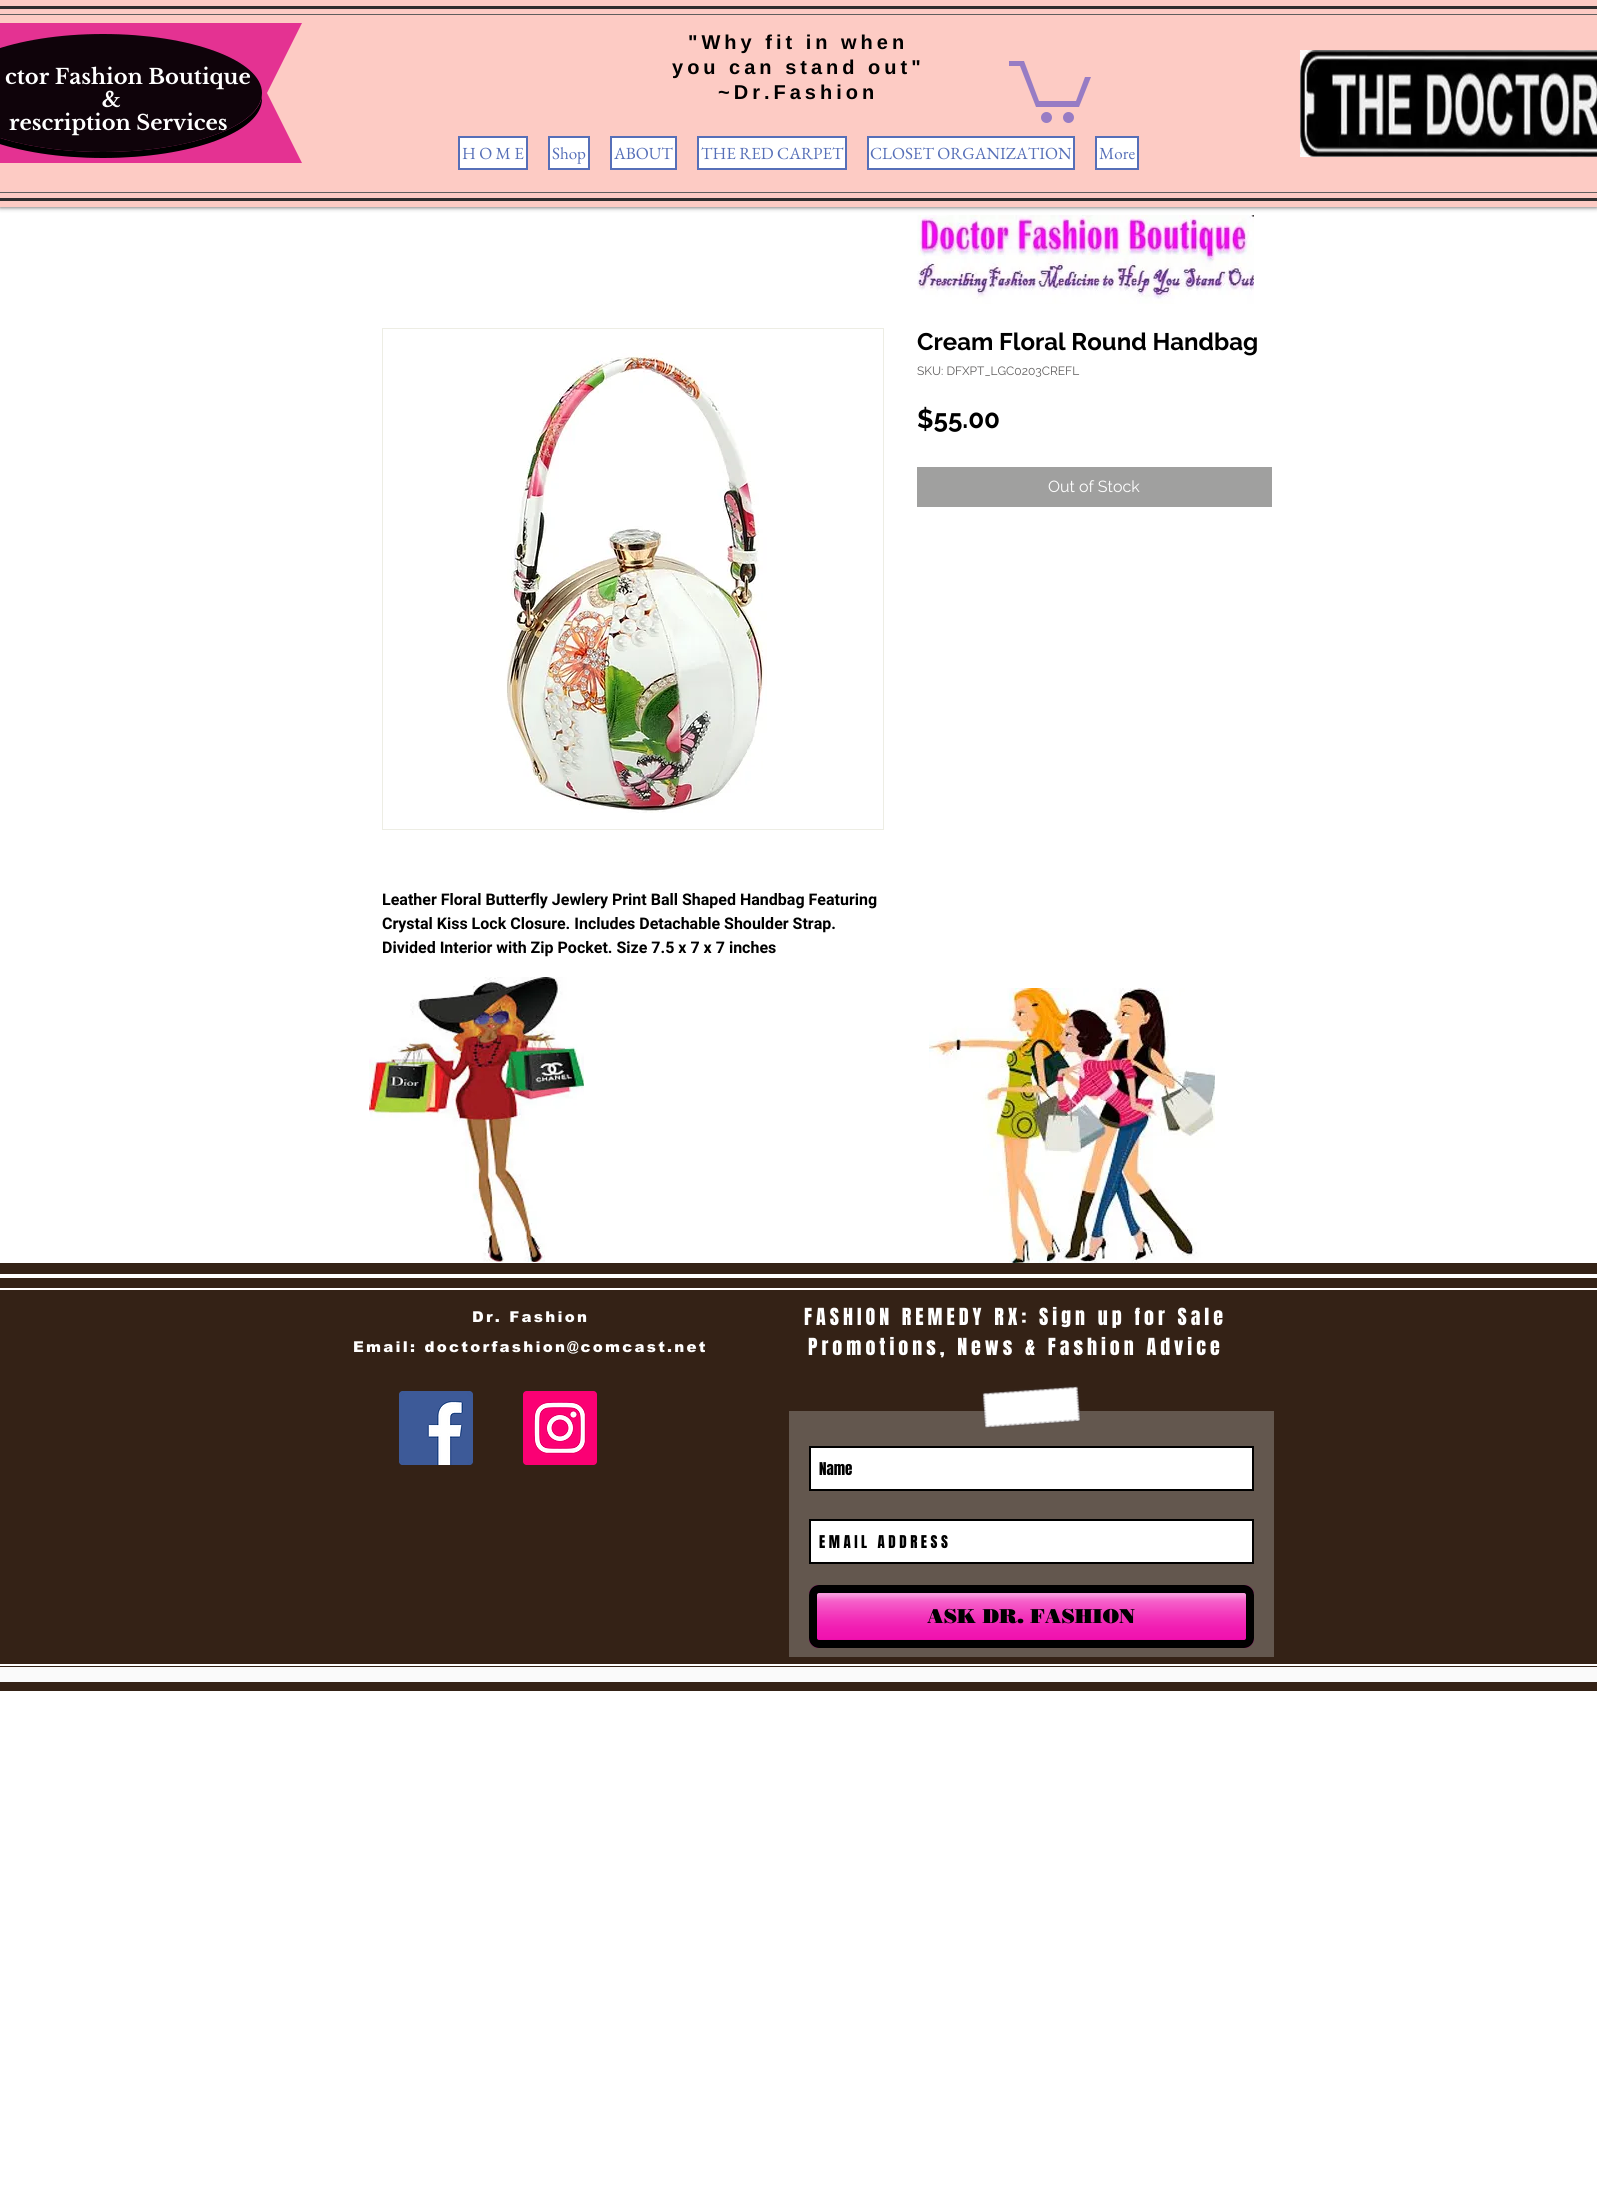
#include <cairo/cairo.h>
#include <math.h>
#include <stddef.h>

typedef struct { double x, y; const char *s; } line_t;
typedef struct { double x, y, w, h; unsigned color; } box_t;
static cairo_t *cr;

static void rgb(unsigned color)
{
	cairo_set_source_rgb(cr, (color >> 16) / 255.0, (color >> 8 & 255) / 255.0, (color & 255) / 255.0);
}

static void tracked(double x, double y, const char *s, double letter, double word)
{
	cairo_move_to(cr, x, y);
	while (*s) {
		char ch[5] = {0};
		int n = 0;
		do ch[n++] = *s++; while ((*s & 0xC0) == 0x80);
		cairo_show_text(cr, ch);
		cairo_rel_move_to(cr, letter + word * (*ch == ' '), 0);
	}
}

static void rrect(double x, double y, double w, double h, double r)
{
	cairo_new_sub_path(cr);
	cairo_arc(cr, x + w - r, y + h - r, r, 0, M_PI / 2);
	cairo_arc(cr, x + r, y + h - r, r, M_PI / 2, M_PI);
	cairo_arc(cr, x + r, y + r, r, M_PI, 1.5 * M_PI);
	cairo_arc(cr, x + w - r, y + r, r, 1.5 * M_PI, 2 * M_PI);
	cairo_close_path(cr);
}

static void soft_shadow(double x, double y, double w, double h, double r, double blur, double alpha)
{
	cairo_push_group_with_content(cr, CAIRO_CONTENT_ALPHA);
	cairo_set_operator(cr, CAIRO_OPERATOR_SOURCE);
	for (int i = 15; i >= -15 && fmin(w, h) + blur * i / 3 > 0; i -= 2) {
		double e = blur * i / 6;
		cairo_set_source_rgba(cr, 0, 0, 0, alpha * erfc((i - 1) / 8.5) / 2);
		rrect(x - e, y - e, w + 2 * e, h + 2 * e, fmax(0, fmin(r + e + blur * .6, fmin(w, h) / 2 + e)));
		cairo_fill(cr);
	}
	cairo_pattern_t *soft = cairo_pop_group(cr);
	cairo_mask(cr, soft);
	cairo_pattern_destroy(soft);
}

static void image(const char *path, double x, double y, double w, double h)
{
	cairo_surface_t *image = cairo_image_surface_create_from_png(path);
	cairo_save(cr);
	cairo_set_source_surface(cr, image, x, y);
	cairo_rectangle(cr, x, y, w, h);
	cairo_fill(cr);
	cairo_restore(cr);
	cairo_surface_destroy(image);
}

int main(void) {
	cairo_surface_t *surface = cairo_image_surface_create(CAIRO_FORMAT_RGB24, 1597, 2206);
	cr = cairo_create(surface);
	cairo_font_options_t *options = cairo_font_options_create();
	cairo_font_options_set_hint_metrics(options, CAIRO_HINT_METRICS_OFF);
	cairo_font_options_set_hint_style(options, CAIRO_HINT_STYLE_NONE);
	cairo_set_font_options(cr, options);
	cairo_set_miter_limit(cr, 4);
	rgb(0xffffff);
	cairo_paint(cr);
	image("img/2.png", 917, 215, 337, 89);
	rgb(0x000000);
	soft_shadow(0, 0, 1597, 207, 0, 2.5, 0.7);
	{
		static const box_t items[] = {
			{0, 0, 1597, 207, 0xfdcbc4},
			{0, 6, 1597, 3, 0x2f2e2e},
			{0, 198, 1597, 3, 0x2f2e2e},
			{0, 14, 1597, 1, 0x605e5e},
			{0, 192, 1597, 1, 0x605e5e},
		};
		for (size_t i = 0; i < sizeof items / sizeof *items; i++) {
			rgb(items[i].color);
			cairo_rectangle(cr, items[i].x, items[i].y, items[i].w, items[i].h);
			cairo_fill(cr);
		}
	}
	cairo_save(cr);
	cairo_rectangle(cr, 0, 23, 103, 71);
	cairo_clip(cr);
	rgb(0xe43292);
	cairo_new_path(cr);
	cairo_move_to(cr, -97, 23);
	cairo_line_to(cr, 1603, 23);
	cairo_line_to(cr, 603, 1023);
	cairo_line_to(cr, 403, 1023);
	cairo_close_path(cr);
	cairo_fill(cr);
	cairo_restore(cr);
	cairo_save(cr);
	cairo_rectangle(cr, 102, 23, 200, 71);
	cairo_clip(cr);
	rgb(0xe43292);
	cairo_new_path(cr);
	cairo_move_to(cr, -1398, 23);
	cairo_line_to(cr, 302, 23);
	cairo_line_to(cr, -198, 1023);
	cairo_line_to(cr, -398, 1023);
	cairo_close_path(cr);
	cairo_fill(cr);
	cairo_restore(cr);
	cairo_save(cr);
	cairo_rectangle(cr, 0, 93, 103, 70);
	cairo_clip(cr);
	rgb(0xe43292);
	cairo_new_path(cr);
	cairo_move_to(cr, 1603, 163);
	cairo_line_to(cr, -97, 163);
	cairo_line_to(cr, 403, -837);
	cairo_line_to(cr, 603, -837);
	cairo_close_path(cr);
	cairo_fill(cr);
	cairo_restore(cr);
	cairo_save(cr);
	cairo_rectangle(cr, 102, 93, 200, 70);
	cairo_clip(cr);
	rgb(0xe43292);
	cairo_new_path(cr);
	cairo_move_to(cr, 302, 163);
	cairo_line_to(cr, -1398, 163);
	cairo_line_to(cr, -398, -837);
	cairo_line_to(cr, -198, -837);
	cairo_close_path(cr);
	cairo_fill(cr);
	cairo_restore(cr);
	rgb(0x000000);
	cairo_new_path(cr);
	cairo_move_to(cr, -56, 96);
	cairo_line_to(cr, -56, 99);
	cairo_curve_to(cr, -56, 132, 15, 158, 103, 158);
	cairo_curve_to(cr, 191, 158, 262, 132, 262, 99);
	cairo_line_to(cr, 262, 96);
	cairo_curve_to(cr, 258, 127, 188, 152, 103, 152);
	cairo_curve_to(cr, 18, 152, -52, 127, -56, 96);
	cairo_close_path(cr);
	cairo_fill(cr);
	cairo_set_source_rgba(cr, 0, 0, 0, 0.93);
	cairo_new_path(cr);
	cairo_move_to(cr, 103, 34);
	cairo_curve_to(cr, 191, 34, 262, 60.5, 262, 93);
	cairo_curve_to(cr, 262, 125.5, 191, 152, 103, 152);
	cairo_curve_to(cr, 15, 152, -56, 125.5, -56, 93);
	cairo_curve_to(cr, -56, 60.5, 15, 34, 103, 34);
	cairo_close_path(cr);
	cairo_fill(cr);
	rgb(0x977cc4);
	cairo_new_path(cr);
	cairo_move_to(cr, 1091, 77);
	cairo_line_to(cr, 1079, 107);
	cairo_line_to(cr, 1036, 107);
	cairo_line_to(cr, 1020, 66);
	cairo_line_to(cr, 1009, 66);
	cairo_line_to(cr, 1009, 61);
	cairo_line_to(cr, 1024, 61);
	cairo_line_to(cr, 1039, 101);
	cairo_line_to(cr, 1076, 101);
	cairo_line_to(cr, 1085, 77);
	cairo_fill(cr);
	cairo_arc(cr, 1068.5, 117.5, 5.5, 0, 2 * M_PI);
	cairo_fill(cr);
	cairo_arc(cr, 1046.5, 117.5, 5.5, 0, 2 * M_PI);
	cairo_fill(cr);
	image("img/1.png", 1300, 50, 297, 107);
	rgb(0xffffff);
	cairo_rectangle(cr, 459, 137, 68, 32);
	cairo_fill_preserve(cr);
	rgb(0x566fb8);
	cairo_stroke(cr);
	rgb(0xffffff);
	cairo_rectangle(cr, 549, 137, 40, 32);
	cairo_fill_preserve(cr);
	rgb(0x566fb8);
	cairo_stroke(cr);
	rgb(0xffffff);
	cairo_rectangle(cr, 611, 137, 65, 32);
	cairo_fill_preserve(cr);
	rgb(0x566fb8);
	cairo_stroke(cr);
	rgb(0xffffff);
	cairo_rectangle(cr, 698, 137, 148, 32);
	cairo_fill_preserve(cr);
	rgb(0x566fb8);
	cairo_stroke(cr);
	rgb(0xffffff);
	cairo_rectangle(cr, 868, 137, 206, 32);
	cairo_fill_preserve(cr);
	rgb(0x566fb8);
	cairo_stroke(cr);
	rgb(0xffffff);
	cairo_rectangle(cr, 1096, 137, 42, 32);
	cairo_fill_preserve(cr);
	rgb(0x566fb8);
	cairo_stroke(cr);
	rgb(0xa0a09f);
	cairo_rectangle(cr, 917, 467, 355, 40);
	cairo_fill(cr);
	cairo_rectangle(cr, 382.5, 328.5, 501, 501);
	rgb(0xedede4);
	cairo_set_line_width(cr, 1);
	cairo_stroke(cr);
	image("img/3.png", 506, 353, 261, 460);
	image("img/4.png", 369, 977, 215, 285);
	image("img/5.png", 929, 988, 286, 275);
	{
		static const box_t items[] = {
			{0, 1263, 1597, 428, 0x342216},
			{0, 1274, 1597, 4, 0xffffff},
			{0, 1288, 1597, 2, 0xffffff},
			{0, 1664, 1597, 2, 0xffffff},
		};
		for (size_t i = 0; i < sizeof items / sizeof *items; i++) {
			rgb(items[i].color);
			cairo_rectangle(cr, items[i].x, items[i].y, items[i].w, items[i].h);
			cairo_fill(cr);
		}
	}
	image("img/6.png", 399, 1391, 74, 74);
	image("img/7.png", 523, 1391, 74, 74);
	rgb(0x63574e);
	cairo_rectangle(cr, 789, 1411, 485, 246);
	cairo_fill(cr);
	image("img/8.png", 982, 1386, 99, 42);
	rgb(0xffffff);
	cairo_rectangle(cr, 810, 1447, 443, 43);
	cairo_fill_preserve(cr);
	rgb(0x000000);
	cairo_set_line_width(cr, 2);
	cairo_stroke(cr);
	rgb(0xffffff);
	cairo_rectangle(cr, 810, 1520, 443, 43);
	cairo_fill_preserve(cr);
	rgb(0x000000);
	cairo_stroke(cr);
	rgb(0xf00cad);
	rrect(809, 1585, 445, 63, 10);
	cairo_fill(cr);
	image("img/9.png", 809, 1593, 445, 46);
	rrect(813, 1589, 437, 55, 6);
	rgb(0x000000);
	cairo_set_line_width(cr, 8);
	cairo_stroke(cr);
	rgb(0xfafafa);
	cairo_rectangle(cr, 0, 1667, 1597, 15);
	cairo_fill(cr);
	cairo_select_font_face(cr, "Libre Baskerville", CAIRO_FONT_SLANT_NORMAL, CAIRO_FONT_WEIGHT_BOLD);
	cairo_set_font_size(cr, 21);
	rgb(0xffffff);
	{
		static const line_t items[] = {
			{5, 84, "ctor Fashion Boutique"},
			{102, 107, "&"},
			{9, 130, "rescription Services"},
		};
		for (size_t i = 0; i < sizeof items / sizeof *items; i++) {
			cairo_move_to(cr, items[i].x, items[i].y);
			cairo_show_text(cr, items[i].s);
		}
	}
	cairo_select_font_face(cr, "Liberation Sans", CAIRO_FONT_SLANT_NORMAL, CAIRO_FONT_WEIGHT_BOLD);
	cairo_set_font_size(cr, 20);
	rgb(0x000000);
	{
		static const line_t items[] = {
			{688, 49, "\"Why fit in when"},
			{672, 74, "you can stand out\""},
			{718, 99, "~Dr.Fashion"},
		};
		for (size_t i = 0; i < sizeof items / sizeof *items; i++) {
			tracked(items[i].x, items[i].y, items[i].s, 4, 0);
		}
	}
	cairo_select_font_face(cr, "EB Garamond", CAIRO_FONT_SLANT_NORMAL, CAIRO_FONT_WEIGHT_NORMAL);
	cairo_set_font_size(cr, 17);
	rgb(0x566fb8);
	{
		static const line_t items[] = {
			{462, 159, "H O M E"},
			{552, 159, "Shop"},
			{614, 159, "ABOUT"},
			{701, 159, "THE RED CARPET"},
			{870, 159, "CLOSET ORGANIZATION"},
			{1099, 159, "More"},
		};
		for (size_t i = 0; i < sizeof items / sizeof *items; i++) {
			cairo_move_to(cr, items[i].x, items[i].y);
			cairo_show_text(cr, items[i].s);
		}
	}
	cairo_select_font_face(cr, "Raleway", CAIRO_FONT_SLANT_NORMAL, CAIRO_FONT_WEIGHT_BOLD);
	cairo_set_font_size(cr, 24);
	rgb(0x000000);
	cairo_move_to(cr, 917, 350);
	cairo_show_text(cr, "Cream Floral Round Handbag");
	cairo_select_font_face(cr, "Raleway", CAIRO_FONT_SLANT_NORMAL, CAIRO_FONT_WEIGHT_NORMAL);
	cairo_set_font_size(cr, 12);
	rgb(0x605e5e);
	cairo_move_to(cr, 917, 375);
	cairo_show_text(cr, "SKU: DFXPT_LGC0203CREFL");
	cairo_select_font_face(cr, "Raleway", CAIRO_FONT_SLANT_NORMAL, CAIRO_FONT_WEIGHT_BOLD);
	cairo_set_font_size(cr, 26);
	rgb(0x000000);
	cairo_move_to(cr, 917, 428);
	cairo_show_text(cr, "$55.00");
	cairo_select_font_face(cr, "Raleway", CAIRO_FONT_SLANT_NORMAL, CAIRO_FONT_WEIGHT_NORMAL);
	cairo_set_font_size(cr, 16);
	rgb(0xffffff);
	cairo_move_to(cr, 1048, 492);
	cairo_show_text(cr, "Out of Stock");
	cairo_select_font_face(cr, "Roboto", CAIRO_FONT_SLANT_NORMAL, CAIRO_FONT_WEIGHT_BOLD);
	rgb(0x000000);
	{
		static const line_t items[] = {
			{382, 905, "Leather Floral Butterfly Jewlery Print Ball Shaped Handbag Featuring"},
			{382, 929, "Crystal Kiss Lock Closure. Includes Detachable Shoulder Strap."},
			{382, 953, "Divided Interior with Zip Pocket. Size 7.5 x 7 x 7 inches"},
		};
		for (size_t i = 0; i < sizeof items / sizeof *items; i++) {
			cairo_move_to(cr, items[i].x, items[i].y);
			cairo_show_text(cr, items[i].s);
		}
	}
	cairo_select_font_face(cr, "arial Black", CAIRO_FONT_SLANT_NORMAL, CAIRO_FONT_WEIGHT_NORMAL);
	cairo_set_font_size(cr, 15);
	rgb(0xffffff);
	tracked(472, 1322, "Dr. Fashion", 2.25, 0);
	tracked(353, 1352, "Email: doctorfashion@comcast.net", 2.25, 0);
	cairo_select_font_face(cr, "Anton", CAIRO_FONT_SLANT_NORMAL, CAIRO_FONT_WEIGHT_NORMAL);
	cairo_set_font_size(cr, 20);
	tracked(804, 1325, "FASHION REMEDY RX: Sign up for Sale", 4, 0);
	tracked(808, 1355, "Promotions, News & Fashion Advice", 4, 0);
	cairo_set_font_size(cr, 15);
	rgb(0x000000);
	cairo_move_to(cr, 819, 1475);
	cairo_show_text(cr, "Name");
	cairo_move_to(cr, 819, 1548);
	cairo_show_text(cr, "E M A I L   A D D R E S S");
	cairo_select_font_face(cr, "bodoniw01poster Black", CAIRO_FONT_SLANT_NORMAL, CAIRO_FONT_WEIGHT_NORMAL);
	cairo_set_font_size(cr, 20);
	cairo_move_to(cr, 927, 1623);
	cairo_show_text(cr, "ASK DR. FASHION");
	cairo_surface_write_to_png(surface, "page.png");
	cairo_font_options_destroy(options);
	cairo_destroy(cr);
	cairo_surface_destroy(surface);
	return 0;
}
